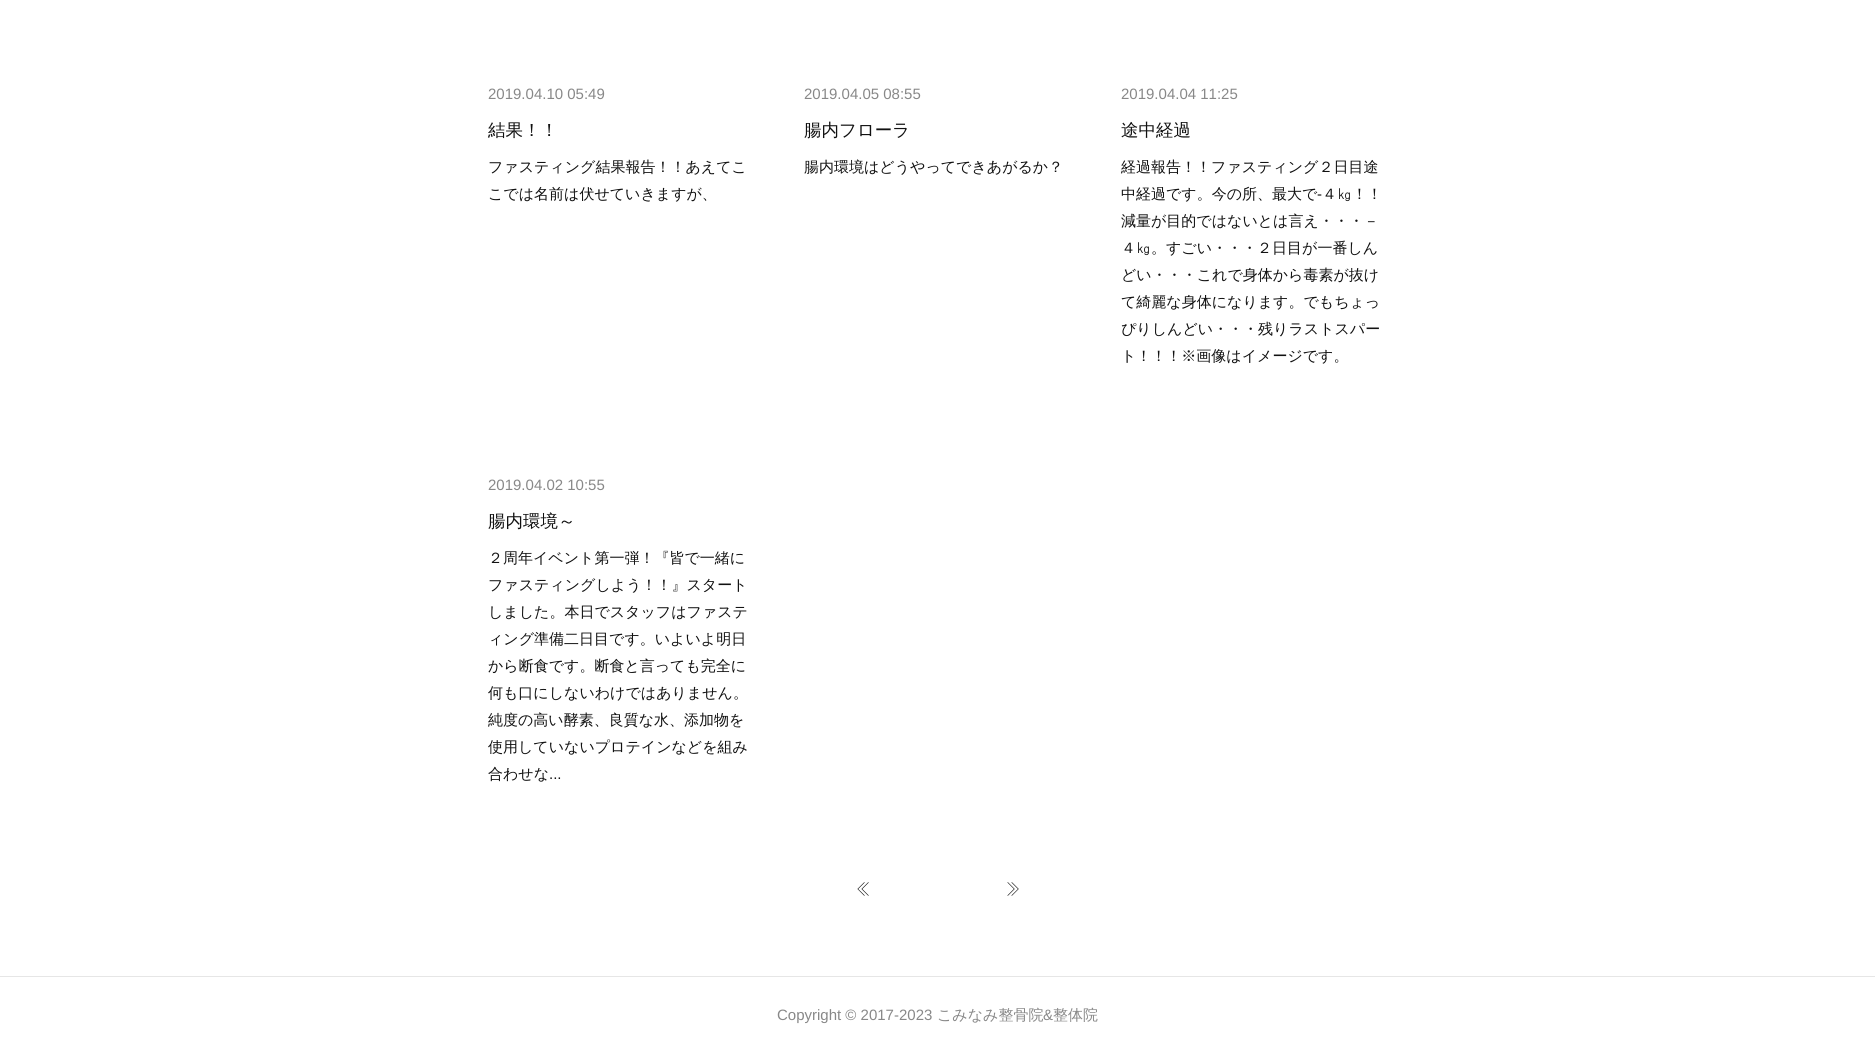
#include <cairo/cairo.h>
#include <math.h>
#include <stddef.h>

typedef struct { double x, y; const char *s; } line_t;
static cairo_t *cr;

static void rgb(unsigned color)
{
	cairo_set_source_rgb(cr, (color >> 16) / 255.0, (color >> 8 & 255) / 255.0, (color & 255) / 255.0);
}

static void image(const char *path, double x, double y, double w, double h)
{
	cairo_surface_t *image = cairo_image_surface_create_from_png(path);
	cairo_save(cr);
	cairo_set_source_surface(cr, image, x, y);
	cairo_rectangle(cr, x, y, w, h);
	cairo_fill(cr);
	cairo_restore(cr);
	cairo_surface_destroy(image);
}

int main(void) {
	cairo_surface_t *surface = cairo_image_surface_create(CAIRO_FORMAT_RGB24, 1875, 1038);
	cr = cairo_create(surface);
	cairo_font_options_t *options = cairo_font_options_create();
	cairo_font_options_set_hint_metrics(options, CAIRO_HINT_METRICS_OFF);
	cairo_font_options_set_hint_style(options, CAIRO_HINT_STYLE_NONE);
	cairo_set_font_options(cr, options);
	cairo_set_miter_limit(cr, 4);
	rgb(0xffffff);
	cairo_paint(cr);
	image("img/1.png", 857, 882, 12, 14);
	image("img/2.png", 1007, 882, 12, 14);
	rgb(0xe6e6e6);
	cairo_rectangle(cr, 0, 976, 1875, 1);
	cairo_fill(cr);
	cairo_select_font_face(cr, "Liberation Sans", CAIRO_FONT_SLANT_NORMAL, CAIRO_FONT_WEIGHT_NORMAL);
	cairo_set_font_size(cr, 15);
	rgb(0x888888);
	cairo_move_to(cr, 488, 99);
	cairo_show_text(cr, "2019.04.10 05:49");
	cairo_select_font_face(cr, "WenQuanYi Zen Hei Medium", CAIRO_FONT_SLANT_NORMAL, CAIRO_FONT_WEIGHT_NORMAL);
	cairo_set_font_size(cr, 17.5);
	rgb(0x111111);
	cairo_move_to(cr, 488, 136);
	cairo_show_text(cr, "結果！！");
	cairo_set_font_size(cr, 15);
	cairo_move_to(cr, 488, 172);
	cairo_show_text(cr, "ファスティング結果報告！！あえてこ");
	cairo_move_to(cr, 488, 199);
	cairo_show_text(cr, "こでは名前は伏せていきますが、");
	cairo_select_font_face(cr, "Liberation Sans", CAIRO_FONT_SLANT_NORMAL, CAIRO_FONT_WEIGHT_NORMAL);
	rgb(0x888888);
	cairo_move_to(cr, 804, 99);
	cairo_show_text(cr, "2019.04.05 08:55");
	cairo_select_font_face(cr, "WenQuanYi Zen Hei Medium", CAIRO_FONT_SLANT_NORMAL, CAIRO_FONT_WEIGHT_NORMAL);
	cairo_set_font_size(cr, 17.5);
	rgb(0x111111);
	cairo_move_to(cr, 804, 136);
	cairo_show_text(cr, "腸内フローラ");
	cairo_set_font_size(cr, 15);
	cairo_move_to(cr, 804, 172);
	cairo_show_text(cr, "腸内環境はどうやってできあがるか？");
	cairo_select_font_face(cr, "Liberation Sans", CAIRO_FONT_SLANT_NORMAL, CAIRO_FONT_WEIGHT_NORMAL);
	rgb(0x888888);
	cairo_move_to(cr, 1121, 99);
	cairo_show_text(cr, "2019.04.04 11:25");
	cairo_select_font_face(cr, "WenQuanYi Zen Hei Medium", CAIRO_FONT_SLANT_NORMAL, CAIRO_FONT_WEIGHT_NORMAL);
	cairo_set_font_size(cr, 17.5);
	rgb(0x111111);
	cairo_move_to(cr, 1121, 136);
	cairo_show_text(cr, "途中経過");
	cairo_set_font_size(cr, 15);
	cairo_move_to(cr, 1121, 172);
	cairo_show_text(cr, "経過報告！！ファスティング２日目途");
	cairo_move_to(cr, 1121, 199);
	cairo_show_text(cr, "中経過です。今の所、最大で");
	cairo_select_font_face(cr, "Liberation Sans", CAIRO_FONT_SLANT_NORMAL, CAIRO_FONT_WEIGHT_NORMAL);
	cairo_move_to(cr, 1317, 199);
	cairo_show_text(cr, "-");
	cairo_select_font_face(cr, "WenQuanYi Zen Hei Medium", CAIRO_FONT_SLANT_NORMAL, CAIRO_FONT_WEIGHT_NORMAL);
	{
		static const line_t items[] = {
			{1322, 199, "４㎏！！"},
			{1121, 226, "減量が目的ではないとは言え・・・－"},
			{1121, 253, "４㎏。すごい・・・２日目が一番しん"},
			{1121, 280, "どい・・・これで身体から毒素が抜け"},
			{1121, 307, "て綺麗な身体になります。でもちょっ"},
			{1121, 334, "ぴりしんどい・・・残りラストスパー"},
			{1121, 361, "ト！！！※画像はイメージです。"},
		};
		for (size_t i = 0; i < sizeof items / sizeof *items; i++) {
			cairo_move_to(cr, items[i].x, items[i].y);
			cairo_show_text(cr, items[i].s);
		}
	}
	cairo_select_font_face(cr, "Liberation Sans", CAIRO_FONT_SLANT_NORMAL, CAIRO_FONT_WEIGHT_NORMAL);
	rgb(0x888888);
	cairo_move_to(cr, 488, 490);
	cairo_show_text(cr, "2019.04.02 10:55");
	cairo_select_font_face(cr, "WenQuanYi Zen Hei Medium", CAIRO_FONT_SLANT_NORMAL, CAIRO_FONT_WEIGHT_NORMAL);
	cairo_set_font_size(cr, 17.5);
	rgb(0x111111);
	cairo_move_to(cr, 488, 527);
	cairo_show_text(cr, "腸内環境～");
	cairo_set_font_size(cr, 15);
	{
		static const line_t items[] = {
			{488, 563, "２周年イベント第一弾！『皆で一緒に"},
			{488, 590, "ファスティングしよう！！』スタート"},
			{488, 617, "しました。本日でスタッフはファステ"},
			{488, 644, "ィング準備二日目です。いよいよ明日"},
			{488, 671, "から断食です。断食と言っても完全に"},
			{488, 698, "何も口にしないわけではありません。"},
			{488, 725, "純度の高い酵素、良質な水、添加物を"},
			{488, 752, "使用していないプロテインなどを組み"},
			{488, 779, "合わせな"},
		};
		for (size_t i = 0; i < sizeof items / sizeof *items; i++) {
			cairo_move_to(cr, items[i].x, items[i].y);
			cairo_show_text(cr, items[i].s);
		}
	}
	cairo_select_font_face(cr, "Liberation Sans", CAIRO_FONT_SLANT_NORMAL, CAIRO_FONT_WEIGHT_NORMAL);
	cairo_move_to(cr, 549, 779);
	cairo_show_text(cr, "...");
	rgb(0x888888);
	cairo_move_to(cr, 777, 1020);
	cairo_show_text(cr, "Copyright © 2017-2023");
	cairo_select_font_face(cr, "WenQuanYi Zen Hei Medium", CAIRO_FONT_SLANT_NORMAL, CAIRO_FONT_WEIGHT_NORMAL);
	cairo_move_to(cr, 937, 1020);
	cairo_show_text(cr, "こみなみ整骨院");
	cairo_select_font_face(cr, "Liberation Sans", CAIRO_FONT_SLANT_NORMAL, CAIRO_FONT_WEIGHT_NORMAL);
	cairo_move_to(cr, 1043, 1020);
	cairo_show_text(cr, "&");
	cairo_select_font_face(cr, "WenQuanYi Zen Hei Medium", CAIRO_FONT_SLANT_NORMAL, CAIRO_FONT_WEIGHT_NORMAL);
	cairo_move_to(cr, 1053, 1020);
	cairo_show_text(cr, "整体院");
	cairo_surface_write_to_png(surface, "page.png");
	cairo_font_options_destroy(options);
	cairo_destroy(cr);
	cairo_surface_destroy(surface);
	return 0;
}
